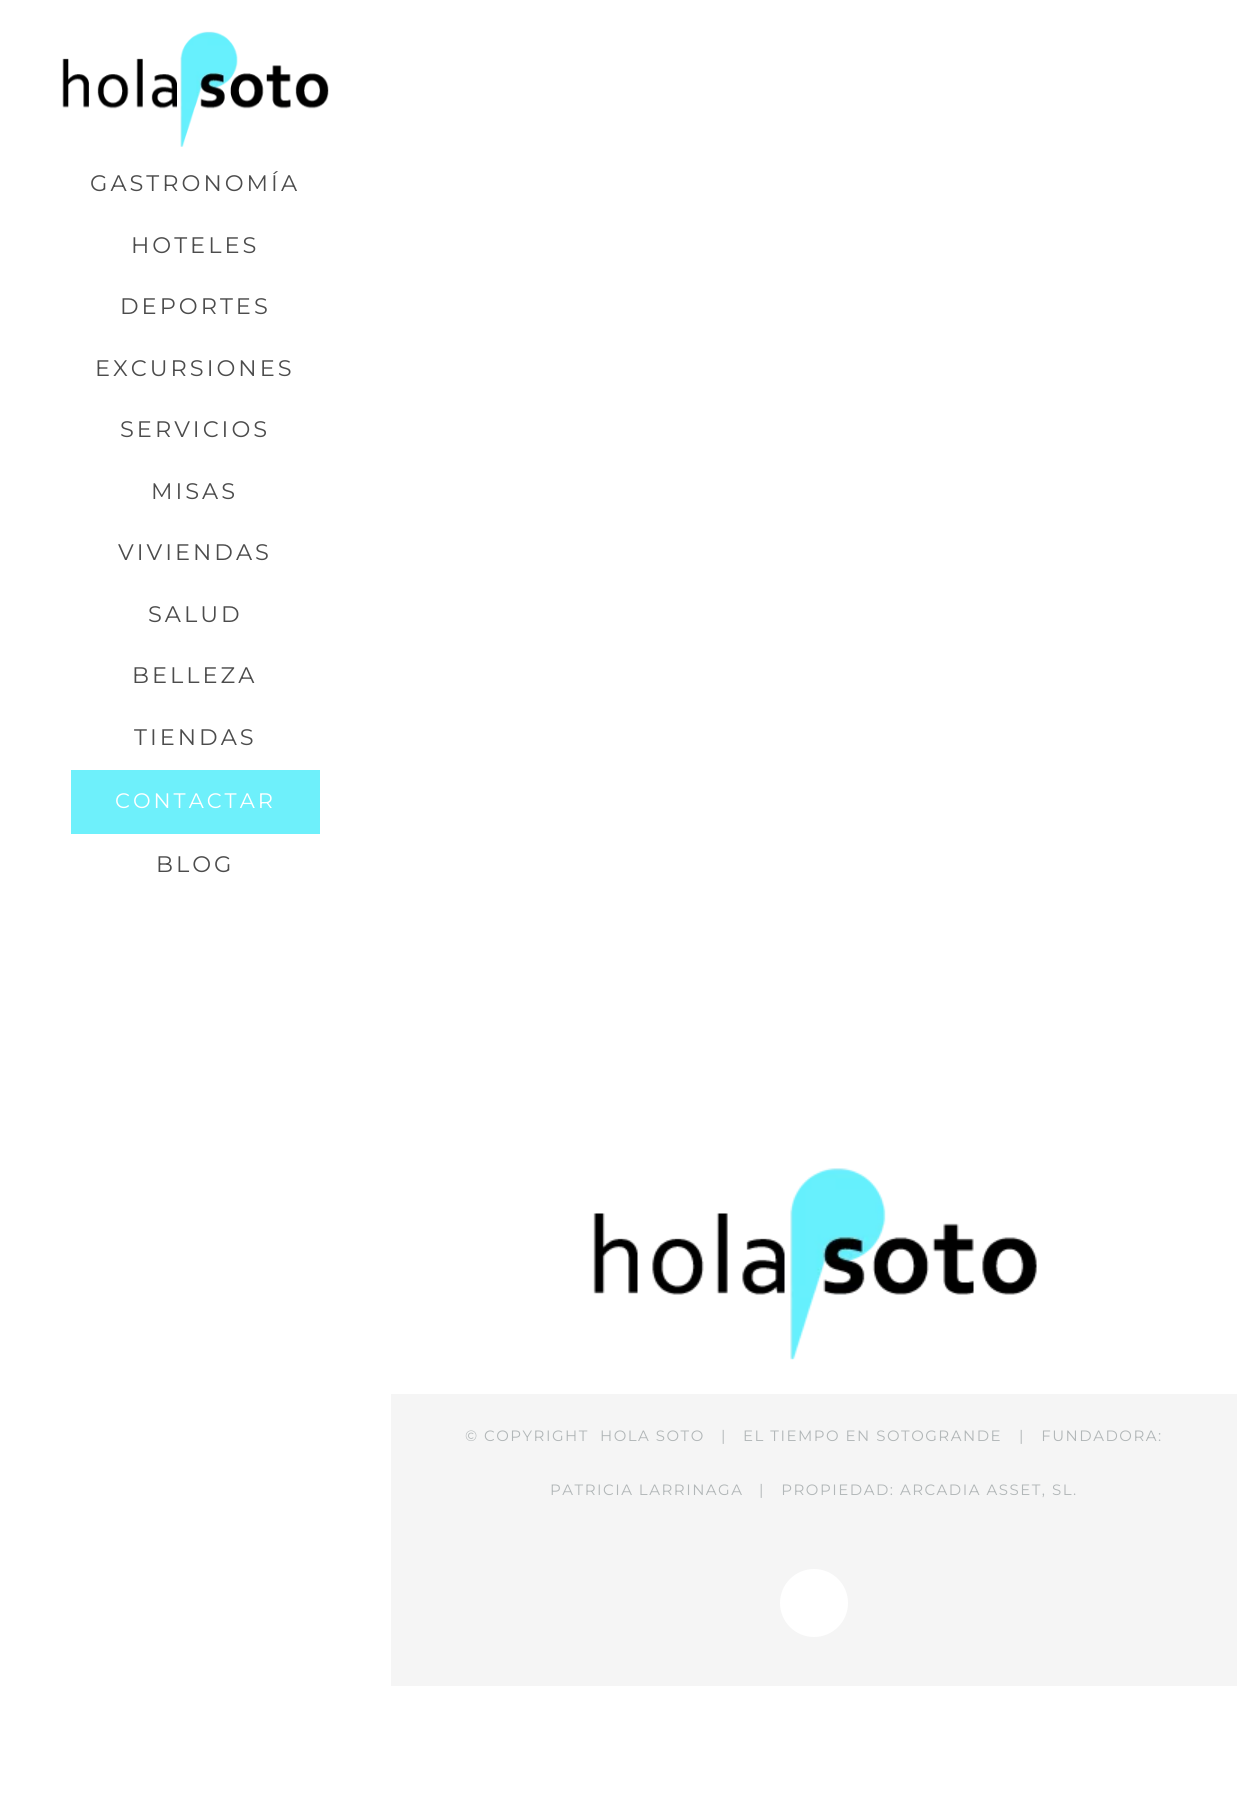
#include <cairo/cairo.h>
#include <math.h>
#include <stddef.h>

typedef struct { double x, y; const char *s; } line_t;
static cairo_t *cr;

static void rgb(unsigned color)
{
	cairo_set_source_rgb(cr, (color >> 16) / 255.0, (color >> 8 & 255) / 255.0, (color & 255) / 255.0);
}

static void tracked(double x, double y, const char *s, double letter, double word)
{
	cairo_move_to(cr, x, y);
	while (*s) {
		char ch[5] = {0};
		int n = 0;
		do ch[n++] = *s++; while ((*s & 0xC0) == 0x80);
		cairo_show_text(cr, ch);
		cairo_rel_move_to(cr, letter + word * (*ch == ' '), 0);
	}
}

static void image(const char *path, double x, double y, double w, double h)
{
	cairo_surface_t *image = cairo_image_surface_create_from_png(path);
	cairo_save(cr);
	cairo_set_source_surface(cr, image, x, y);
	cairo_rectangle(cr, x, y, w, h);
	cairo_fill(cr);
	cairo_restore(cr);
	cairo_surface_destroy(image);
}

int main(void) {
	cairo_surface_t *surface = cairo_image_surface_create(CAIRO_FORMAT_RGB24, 1237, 1814);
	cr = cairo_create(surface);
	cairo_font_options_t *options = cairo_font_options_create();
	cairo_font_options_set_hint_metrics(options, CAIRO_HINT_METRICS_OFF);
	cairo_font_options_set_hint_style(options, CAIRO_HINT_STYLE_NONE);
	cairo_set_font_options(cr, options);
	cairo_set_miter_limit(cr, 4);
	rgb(0xffffff);
	cairo_paint(cr);
	image("img/1.png", 62, 31, 267, 116);
	rgb(0x6ef0fb);
	cairo_rectangle(cr, 71, 770, 249, 64);
	cairo_fill(cr);
	image("img/2.png", 593, 1168, 444, 192);
	rgb(0xf5f5f5);
	cairo_rectangle(cr, 391, 1394, 846, 292);
	cairo_fill(cr);
	rgb(0xffffff);
	cairo_arc(cr, 814, 1603, 34, 0, 2 * M_PI);
	cairo_fill(cr);
	cairo_select_font_face(cr, "Montserrat Thin", CAIRO_FONT_SLANT_NORMAL, CAIRO_FONT_WEIGHT_NORMAL);
	cairo_set_font_size(cr, 22.5);
	rgb(0x4c4c4c);
	{
		static const line_t items[] = {
			{90, 191, "GASTRONOMÍA"},
			{131, 253, "HOTELES"},
			{120, 314, "DEPORTES"},
			{95, 376, "EXCURSIONES"},
			{120, 437, "SERVICIOS"},
			{151, 499, "MISAS"},
			{118, 560, "VIVIENDAS"},
			{148, 622, "SALUD"},
			{132, 683, "BELLEZA"},
			{134, 745, "TIENDAS"},
		};
		for (size_t i = 0; i < sizeof items / sizeof *items; i++) {
			tracked(items[i].x, items[i].y, items[i].s, 3, 0);
		}
	}
	cairo_set_font_size(cr, 21);
	rgb(0xffffff);
	tracked(115, 808, "CONTACTAR", 3, 0);
	cairo_set_font_size(cr, 22.5);
	rgb(0x4c4c4c);
	tracked(156, 872, "BLOG", 3, 0);
	cairo_set_font_size(cr, 15);
	rgb(0xb2b7b8);
	{
		static const line_t items[] = {
			{465, 1441, "© COPYRIGHT"},
			{600, 1441, "HOLA SOTO   |"},
			{743, 1441, "EL TIEMPO EN SOTOGRANDE"},
			{1019, 1441, "|   FUNDADORA:"},
			{550, 1495, "PATRICIA LARRINAGA"},
			{759, 1495, "|   PROPIEDAD: ARCADIA ASSET, SL."},
		};
		for (size_t i = 0; i < sizeof items / sizeof *items; i++) {
			tracked(items[i].x, items[i].y, items[i].s, 1.5, 0);
		}
	}
	cairo_surface_write_to_png(surface, "page.png");
	cairo_font_options_destroy(options);
	cairo_destroy(cr);
	cairo_surface_destroy(surface);
	return 0;
}
